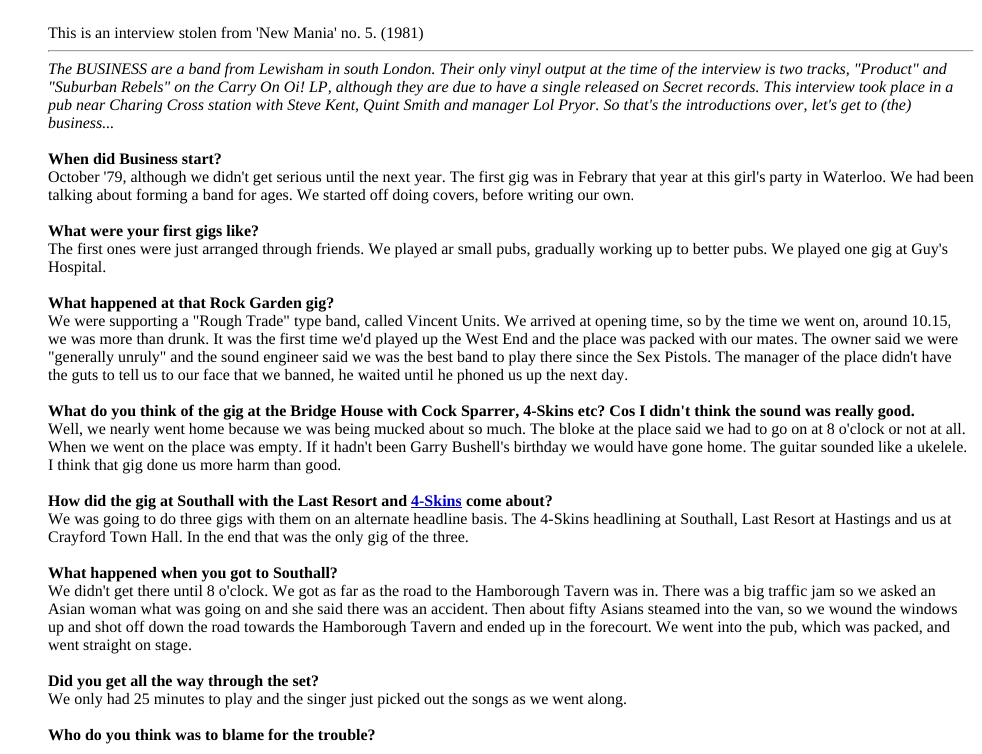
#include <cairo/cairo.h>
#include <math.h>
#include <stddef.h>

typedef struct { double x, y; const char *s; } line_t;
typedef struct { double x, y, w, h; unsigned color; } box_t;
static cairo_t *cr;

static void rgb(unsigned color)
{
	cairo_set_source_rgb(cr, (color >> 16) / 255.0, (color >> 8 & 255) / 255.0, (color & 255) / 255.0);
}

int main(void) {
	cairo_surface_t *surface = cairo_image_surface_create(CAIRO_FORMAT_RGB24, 982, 754);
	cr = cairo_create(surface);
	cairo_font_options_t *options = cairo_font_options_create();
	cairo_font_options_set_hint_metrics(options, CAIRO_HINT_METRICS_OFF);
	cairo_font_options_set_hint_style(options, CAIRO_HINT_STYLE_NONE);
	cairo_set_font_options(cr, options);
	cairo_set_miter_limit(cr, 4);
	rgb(0xffffff);
	cairo_paint(cr);
	{
		static const box_t items[] = {
			{48, 50, 926, 1, 0x9f9f9f},
			{973, 50, 1, 2, 0xeeeeee},
			{48, 51, 926, 1, 0xeeeeee},
			{48, 50, 1, 2, 0x9f9f9f},
			{411, 507, 51, 1, 0x0000c0},
		};
		for (size_t i = 0; i < sizeof items / sizeof *items; i++) {
			rgb(items[i].color);
			cairo_rectangle(cr, items[i].x, items[i].y, items[i].w, items[i].h);
			cairo_fill(cr);
		}
	}
	cairo_select_font_face(cr, "Liberation Serif", CAIRO_FONT_SLANT_NORMAL, CAIRO_FONT_WEIGHT_NORMAL);
	cairo_set_font_size(cr, 16);
	rgb(0x000000);
	cairo_move_to(cr, 48, 38);
	cairo_show_text(cr, "This is an interview stolen from 'New Mania' no. 5. (1981)");
	cairo_select_font_face(cr, "Liberation Serif", CAIRO_FONT_SLANT_ITALIC, CAIRO_FONT_WEIGHT_NORMAL);
	{
		static const line_t items[] = {
			{48, 74, "The BUSINESS are a band from Lewisham in south London. Their only vinyl output at the time of the interview is two tracks, \"Product\" and"},
			{48, 92, "\"Suburban Rebels\" on the Carry On Oi! LP, although they are due to have a single released on Secret records. This interview took place in a"},
			{48, 110, "pub near Charing Cross station with Steve Kent, Quint Smith and manager Lol Pryor. So that's the introductions over, let's get to (the)"},
			{48, 128, "business..."},
		};
		for (size_t i = 0; i < sizeof items / sizeof *items; i++) {
			cairo_move_to(cr, items[i].x, items[i].y);
			cairo_show_text(cr, items[i].s);
		}
	}
	cairo_select_font_face(cr, "Liberation Serif", CAIRO_FONT_SLANT_NORMAL, CAIRO_FONT_WEIGHT_BOLD);
	cairo_move_to(cr, 48, 164);
	cairo_show_text(cr, "When did Business start?");
	cairo_select_font_face(cr, "Liberation Serif", CAIRO_FONT_SLANT_NORMAL, CAIRO_FONT_WEIGHT_NORMAL);
	cairo_move_to(cr, 48, 182);
	cairo_show_text(cr, "October '79, although we didn't get serious until the next year. The first gig was in Febrary that year at this girl's party in Waterloo. We had been");
	cairo_move_to(cr, 48, 200);
	cairo_show_text(cr, "talking about forming a band for ages. We started off doing covers, before writing our own.");
	cairo_select_font_face(cr, "Liberation Serif", CAIRO_FONT_SLANT_NORMAL, CAIRO_FONT_WEIGHT_BOLD);
	cairo_move_to(cr, 48, 236);
	cairo_show_text(cr, "What were your first gigs like?");
	cairo_select_font_face(cr, "Liberation Serif", CAIRO_FONT_SLANT_NORMAL, CAIRO_FONT_WEIGHT_NORMAL);
	cairo_move_to(cr, 48, 254);
	cairo_show_text(cr, "The first ones were just arranged through friends. We played ar small pubs, gradually working up to better pubs. We played one gig at Guy's");
	cairo_move_to(cr, 48, 272);
	cairo_show_text(cr, "Hospital.");
	cairo_select_font_face(cr, "Liberation Serif", CAIRO_FONT_SLANT_NORMAL, CAIRO_FONT_WEIGHT_BOLD);
	cairo_move_to(cr, 48, 308);
	cairo_show_text(cr, "What happened at that Rock Garden gig?");
	cairo_select_font_face(cr, "Liberation Serif", CAIRO_FONT_SLANT_NORMAL, CAIRO_FONT_WEIGHT_NORMAL);
	{
		static const line_t items[] = {
			{48, 326, "We were supporting a \"Rough Trade\" type band, called Vincent Units. We arrived at opening time, so by the time we went on, around 10.15,"},
			{48, 344, "we was more than drunk. It was the first time we'd played up the West End and the place was packed with our mates. The owner said we were"},
			{48, 362, "\"generally unruly\" and the sound engineer said we was the best band to play there since the Sex Pistols. The manager of the place didn't have"},
			{48, 380, "the guts to tell us to our face that we banned, he waited until he phoned us up the next day."},
		};
		for (size_t i = 0; i < sizeof items / sizeof *items; i++) {
			cairo_move_to(cr, items[i].x, items[i].y);
			cairo_show_text(cr, items[i].s);
		}
	}
	cairo_select_font_face(cr, "Liberation Serif", CAIRO_FONT_SLANT_NORMAL, CAIRO_FONT_WEIGHT_BOLD);
	cairo_move_to(cr, 48, 416);
	cairo_show_text(cr, "What do you think of the gig at the Bridge House with Cock Sparrer, 4-Skins etc? Cos I didn't think the sound was really good.");
	cairo_select_font_face(cr, "Liberation Serif", CAIRO_FONT_SLANT_NORMAL, CAIRO_FONT_WEIGHT_NORMAL);
	{
		static const line_t items[] = {
			{48, 434, "Well, we nearly went home because we was being mucked about so much. The bloke at the place said we had to go on at 8 o'clock or not at all."},
			{48, 452, "When we went on the place was empty. If it hadn't been Garry Bushell's birthday we would have gone home. The guitar sounded like a ukelele."},
			{48, 470, "I think that gig done us more harm than good."},
		};
		for (size_t i = 0; i < sizeof items / sizeof *items; i++) {
			cairo_move_to(cr, items[i].x, items[i].y);
			cairo_show_text(cr, items[i].s);
		}
	}
	cairo_select_font_face(cr, "Liberation Serif", CAIRO_FONT_SLANT_NORMAL, CAIRO_FONT_WEIGHT_BOLD);
	cairo_move_to(cr, 48, 506);
	cairo_show_text(cr, "How did the gig at Southall with the Last Resort and");
	rgb(0x0000c0);
	cairo_move_to(cr, 411, 506);
	cairo_show_text(cr, "4-Skins");
	rgb(0x000000);
	cairo_move_to(cr, 466, 506);
	cairo_show_text(cr, "come about?");
	cairo_select_font_face(cr, "Liberation Serif", CAIRO_FONT_SLANT_NORMAL, CAIRO_FONT_WEIGHT_NORMAL);
	cairo_move_to(cr, 48, 524);
	cairo_show_text(cr, "We was going to do three gigs with them on an alternate headline basis. The 4-Skins headlining at Southall, Last Resort at Hastings and us at");
	cairo_move_to(cr, 48, 542);
	cairo_show_text(cr, "Crayford Town Hall. In the end that was the only gig of the three.");
	cairo_select_font_face(cr, "Liberation Serif", CAIRO_FONT_SLANT_NORMAL, CAIRO_FONT_WEIGHT_BOLD);
	cairo_move_to(cr, 48, 578);
	cairo_show_text(cr, "What happened when you got to Southall?");
	cairo_select_font_face(cr, "Liberation Serif", CAIRO_FONT_SLANT_NORMAL, CAIRO_FONT_WEIGHT_NORMAL);
	{
		static const line_t items[] = {
			{48, 596, "We didn't get there until 8 o'clock. We got as far as the road to the Hamborough Tavern was in. There was a big traffic jam so we asked an"},
			{48, 614, "Asian woman what was going on and she said there was an accident. Then about fifty Asians steamed into the van, so we wound the windows"},
			{48, 632, "up and shot off down the road towards the Hamborough Tavern and ended up in the forecourt. We went into the pub, which was packed, and"},
			{48, 650, "went straight on stage."},
		};
		for (size_t i = 0; i < sizeof items / sizeof *items; i++) {
			cairo_move_to(cr, items[i].x, items[i].y);
			cairo_show_text(cr, items[i].s);
		}
	}
	cairo_select_font_face(cr, "Liberation Serif", CAIRO_FONT_SLANT_NORMAL, CAIRO_FONT_WEIGHT_BOLD);
	cairo_move_to(cr, 48, 686);
	cairo_show_text(cr, "Did you get all the way through the set?");
	cairo_select_font_face(cr, "Liberation Serif", CAIRO_FONT_SLANT_NORMAL, CAIRO_FONT_WEIGHT_NORMAL);
	cairo_move_to(cr, 48, 704);
	cairo_show_text(cr, "We only had 25 minutes to play and the singer just picked out the songs as we went along.");
	cairo_select_font_face(cr, "Liberation Serif", CAIRO_FONT_SLANT_NORMAL, CAIRO_FONT_WEIGHT_BOLD);
	cairo_move_to(cr, 48, 740);
	cairo_show_text(cr, "Who do you think was to blame for the trouble?");
	cairo_surface_write_to_png(surface, "page.png");
	cairo_font_options_destroy(options);
	cairo_destroy(cr);
	cairo_surface_destroy(surface);
	return 0;
}
